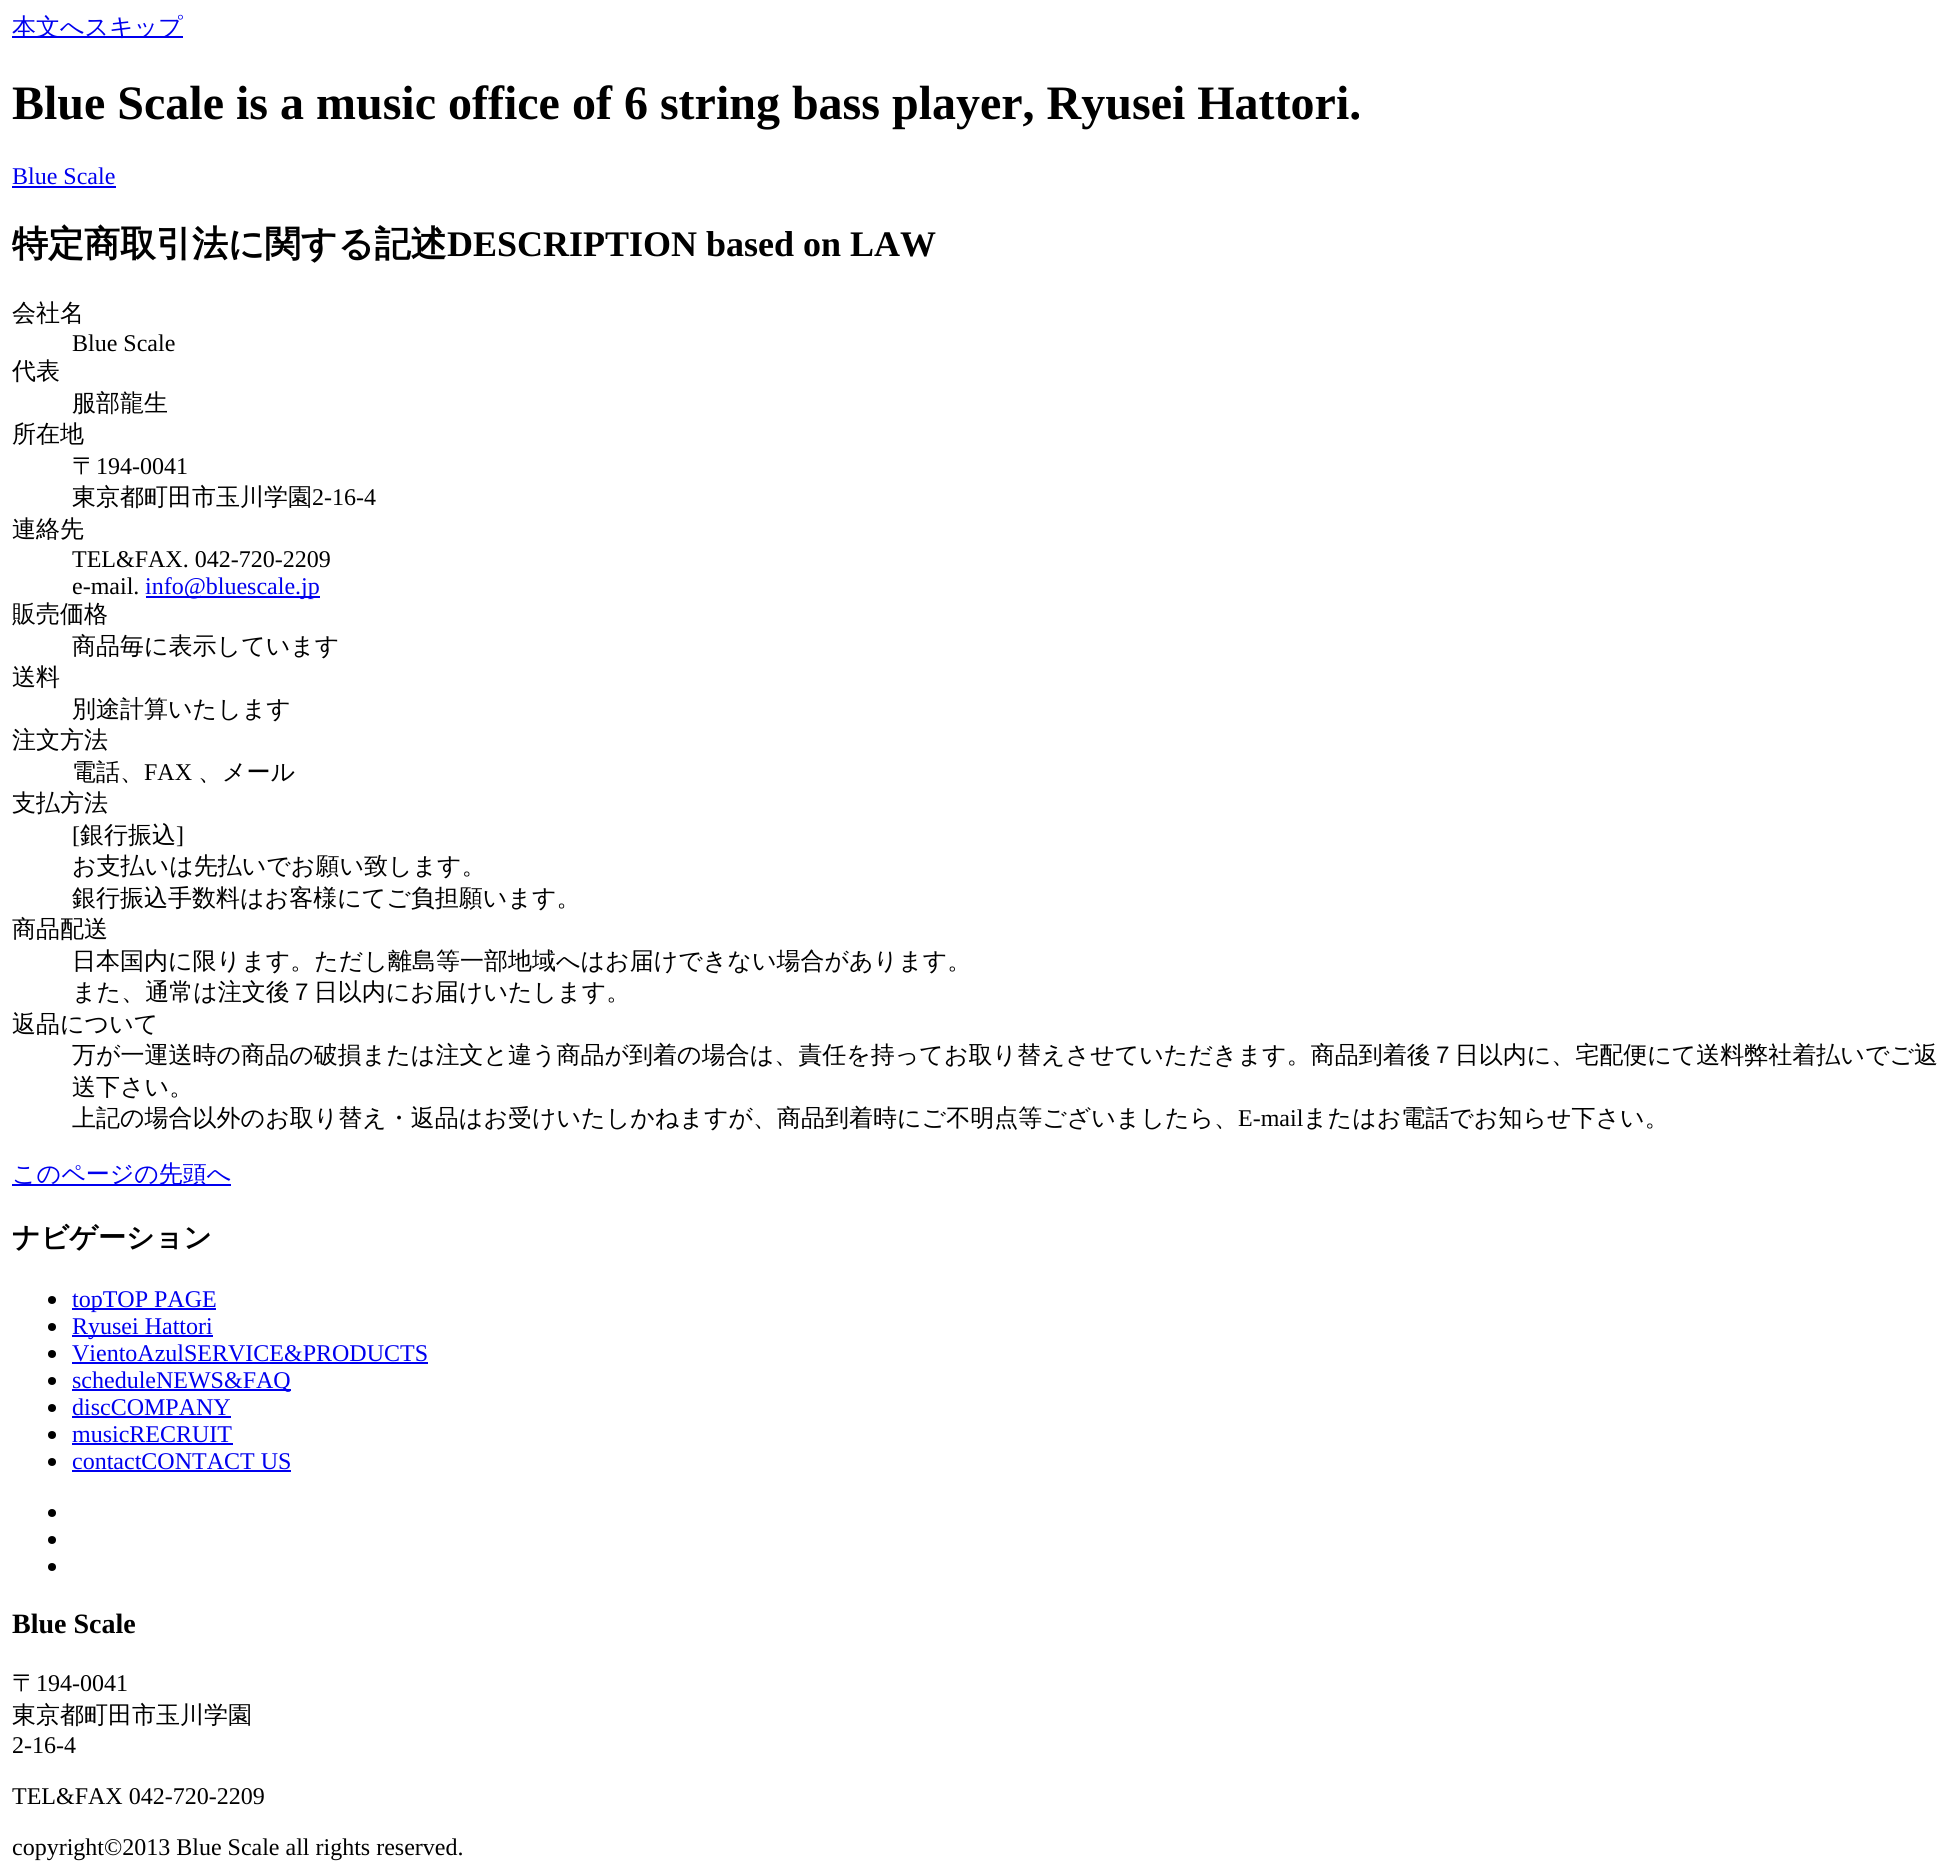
#include <cairo/cairo.h>
#include <math.h>
#include <stddef.h>

typedef struct { double x, y; const char *s; } line_t;
typedef struct { double x, y, w, h; unsigned color; } box_t;
static cairo_t *cr;

static void rgb(unsigned color)
{
	cairo_set_source_rgb(cr, (color >> 16) / 255.0, (color >> 8 & 255) / 255.0, (color & 255) / 255.0);
}

int main(void) {
	cairo_surface_t *surface = cairo_image_surface_create(CAIRO_FORMAT_RGB24, 1957, 1872);
	cr = cairo_create(surface);
	cairo_font_options_t *options = cairo_font_options_create();
	cairo_font_options_set_hint_metrics(options, CAIRO_HINT_METRICS_OFF);
	cairo_font_options_set_hint_style(options, CAIRO_HINT_STYLE_NONE);
	cairo_set_font_options(cr, options);
	cairo_set_miter_limit(cr, 4);
	rgb(0xffffff);
	cairo_paint(cr);
	{
		static const box_t items[] = {
			{12, 36, 171, 2, 0x0000ee},
			{12, 186, 104, 2, 0x0000ee},
			{146, 596, 174, 2, 0x0000ee},
			{12, 1184, 219, 2, 0x0000ee},
		};
		for (size_t i = 0; i < sizeof items / sizeof *items; i++) {
			rgb(items[i].color);
			cairo_rectangle(cr, items[i].x, items[i].y, items[i].w, items[i].h);
			cairo_fill(cr);
		}
	}
	rgb(0x000000);
	cairo_arc(cr, 52, 1300, 4, 0, 2 * M_PI);
	cairo_fill(cr);
	rgb(0x0000ee);
	cairo_rectangle(cr, 72, 1308, 144, 2);
	cairo_fill(cr);
	rgb(0x000000);
	cairo_arc(cr, 52, 1327, 4, 0, 2 * M_PI);
	cairo_fill(cr);
	rgb(0x0000ee);
	cairo_rectangle(cr, 72, 1335, 141, 2);
	cairo_fill(cr);
	rgb(0x000000);
	cairo_arc(cr, 52, 1354, 4, 0, 2 * M_PI);
	cairo_fill(cr);
	rgb(0x0000ee);
	cairo_rectangle(cr, 72, 1362, 356, 2);
	cairo_fill(cr);
	rgb(0x000000);
	cairo_arc(cr, 52, 1381, 4, 0, 2 * M_PI);
	cairo_fill(cr);
	rgb(0x0000ee);
	cairo_rectangle(cr, 72, 1389, 219, 2);
	cairo_fill(cr);
	rgb(0x000000);
	cairo_arc(cr, 52, 1408, 4, 0, 2 * M_PI);
	cairo_fill(cr);
	rgb(0x0000ee);
	cairo_rectangle(cr, 72, 1416, 159, 2);
	cairo_fill(cr);
	rgb(0x000000);
	cairo_arc(cr, 52, 1435, 4, 0, 2 * M_PI);
	cairo_fill(cr);
	rgb(0x0000ee);
	cairo_rectangle(cr, 72, 1443, 161, 2);
	cairo_fill(cr);
	rgb(0x000000);
	cairo_arc(cr, 52, 1462, 4, 0, 2 * M_PI);
	cairo_fill(cr);
	rgb(0x0000ee);
	cairo_rectangle(cr, 72, 1470, 219, 2);
	cairo_fill(cr);
	rgb(0x000000);
	cairo_arc(cr, 52, 1513, 4, 0, 2 * M_PI);
	cairo_fill(cr);
	cairo_arc(cr, 52, 1540, 4, 0, 2 * M_PI);
	cairo_fill(cr);
	cairo_arc(cr, 52, 1567, 4, 0, 2 * M_PI);
	cairo_fill(cr);
	cairo_select_font_face(cr, "WenQuanYi Zen Hei Medium", CAIRO_FONT_SLANT_NORMAL, CAIRO_FONT_WEIGHT_NORMAL);
	cairo_set_font_size(cr, 24);
	rgb(0x0000ee);
	cairo_move_to(cr, 12, 35);
	cairo_show_text(cr, "本文へスキップ");
	cairo_select_font_face(cr, "Liberation Serif", CAIRO_FONT_SLANT_NORMAL, CAIRO_FONT_WEIGHT_BOLD);
	cairo_set_font_size(cr, 48);
	rgb(0x000000);
	cairo_move_to(cr, 12, 119);
	cairo_show_text(cr, "Blue Scale is a music office of 6 string bass player, Ryusei Hattori.");
	cairo_select_font_face(cr, "Liberation Serif", CAIRO_FONT_SLANT_NORMAL, CAIRO_FONT_WEIGHT_NORMAL);
	cairo_set_font_size(cr, 24);
	rgb(0x0000ee);
	cairo_move_to(cr, 12, 184);
	cairo_show_text(cr, "Blue Scale");
	cairo_select_font_face(cr, "WenQuanYi Zen Hei", CAIRO_FONT_SLANT_NORMAL, CAIRO_FONT_WEIGHT_BOLD);
	cairo_set_font_size(cr, 36);
	rgb(0x000000);
	cairo_move_to(cr, 12, 256);
	cairo_show_text(cr, "特定商取引法に関する記述");
	cairo_select_font_face(cr, "Liberation Serif", CAIRO_FONT_SLANT_NORMAL, CAIRO_FONT_WEIGHT_BOLD);
	cairo_move_to(cr, 447, 256);
	cairo_show_text(cr, "DESCRIPTION based on LAW");
	cairo_select_font_face(cr, "WenQuanYi Zen Hei Medium", CAIRO_FONT_SLANT_NORMAL, CAIRO_FONT_WEIGHT_NORMAL);
	cairo_set_font_size(cr, 24);
	cairo_move_to(cr, 12, 321);
	cairo_show_text(cr, "会社名");
	cairo_select_font_face(cr, "Liberation Serif", CAIRO_FONT_SLANT_NORMAL, CAIRO_FONT_WEIGHT_NORMAL);
	cairo_move_to(cr, 72, 351);
	cairo_show_text(cr, "Blue Scale");
	cairo_select_font_face(cr, "WenQuanYi Zen Hei Medium", CAIRO_FONT_SLANT_NORMAL, CAIRO_FONT_WEIGHT_NORMAL);
	{
		static const line_t items[] = {
			{12, 379, "代表"},
			{72, 411, "服部龍生"},
			{12, 442, "所在地"},
			{72, 474, "〒"},
		};
		for (size_t i = 0; i < sizeof items / sizeof *items; i++) {
			cairo_move_to(cr, items[i].x, items[i].y);
			cairo_show_text(cr, items[i].s);
		}
	}
	cairo_select_font_face(cr, "Liberation Serif", CAIRO_FONT_SLANT_NORMAL, CAIRO_FONT_WEIGHT_NORMAL);
	cairo_move_to(cr, 96, 474);
	cairo_show_text(cr, "194-0041");
	cairo_select_font_face(cr, "WenQuanYi Zen Hei Medium", CAIRO_FONT_SLANT_NORMAL, CAIRO_FONT_WEIGHT_NORMAL);
	cairo_move_to(cr, 72, 505);
	cairo_show_text(cr, "東京都町田市玉川学園");
	cairo_select_font_face(cr, "Liberation Serif", CAIRO_FONT_SLANT_NORMAL, CAIRO_FONT_WEIGHT_NORMAL);
	cairo_move_to(cr, 312, 505);
	cairo_show_text(cr, "2-16-4");
	cairo_select_font_face(cr, "WenQuanYi Zen Hei Medium", CAIRO_FONT_SLANT_NORMAL, CAIRO_FONT_WEIGHT_NORMAL);
	cairo_move_to(cr, 12, 537);
	cairo_show_text(cr, "連絡先");
	cairo_select_font_face(cr, "Liberation Serif", CAIRO_FONT_SLANT_NORMAL, CAIRO_FONT_WEIGHT_NORMAL);
	cairo_move_to(cr, 72, 567);
	cairo_show_text(cr, "TEL&FAX. 042-720-2209");
	cairo_move_to(cr, 72, 594);
	cairo_show_text(cr, "e-mail.");
	rgb(0x0000ee);
	cairo_move_to(cr, 145, 594);
	cairo_show_text(cr, "info@bluescale.jp");
	cairo_select_font_face(cr, "WenQuanYi Zen Hei Medium", CAIRO_FONT_SLANT_NORMAL, CAIRO_FONT_WEIGHT_NORMAL);
	rgb(0x000000);
	{
		static const line_t items[] = {
			{12, 622, "販売価格"},
			{72, 654, "商品毎に表示しています"},
			{12, 685, "送料"},
			{72, 717, "別途計算いたします"},
			{12, 748, "注文方法"},
			{72, 780, "電話、"},
		};
		for (size_t i = 0; i < sizeof items / sizeof *items; i++) {
			cairo_move_to(cr, items[i].x, items[i].y);
			cairo_show_text(cr, items[i].s);
		}
	}
	cairo_select_font_face(cr, "Liberation Serif", CAIRO_FONT_SLANT_NORMAL, CAIRO_FONT_WEIGHT_NORMAL);
	cairo_move_to(cr, 144, 780);
	cairo_show_text(cr, "FAX");
	cairo_select_font_face(cr, "WenQuanYi Zen Hei Medium", CAIRO_FONT_SLANT_NORMAL, CAIRO_FONT_WEIGHT_NORMAL);
	cairo_move_to(cr, 198, 780);
	cairo_show_text(cr, "、メール");
	cairo_move_to(cr, 12, 811);
	cairo_show_text(cr, "支払方法");
	cairo_select_font_face(cr, "Liberation Serif", CAIRO_FONT_SLANT_NORMAL, CAIRO_FONT_WEIGHT_NORMAL);
	cairo_move_to(cr, 72, 843);
	cairo_show_text(cr, "[");
	cairo_select_font_face(cr, "WenQuanYi Zen Hei Medium", CAIRO_FONT_SLANT_NORMAL, CAIRO_FONT_WEIGHT_NORMAL);
	cairo_move_to(cr, 80, 843);
	cairo_show_text(cr, "銀行振込");
	cairo_select_font_face(cr, "Liberation Serif", CAIRO_FONT_SLANT_NORMAL, CAIRO_FONT_WEIGHT_NORMAL);
	cairo_move_to(cr, 176, 843);
	cairo_show_text(cr, "]");
	cairo_select_font_face(cr, "WenQuanYi Zen Hei Medium", CAIRO_FONT_SLANT_NORMAL, CAIRO_FONT_WEIGHT_NORMAL);
	{
		static const line_t items[] = {
			{72, 874, "お支払いは先払いでお願い致します。"},
			{72, 906, "銀行振込手数料はお客様にてご負担願います。"},
			{12, 937, "商品配送"},
			{72, 969, "日本国内に限ります。ただし離島等一部地域へはお届けできない場合があります。"},
			{72, 1000, "また、通常は注文後７日以内にお届けいたします。"},
			{12, 1032, "返品について"},
			{72, 1063, "万が一運送時の商品の破損または注文と違う商品が到着の場合は、責任を持ってお取り替えさせていただきます。商品到着後７日以内に、宅配便にて送料弊社着払いでご返"},
			{72, 1095, "送下さい。"},
			{72, 1126, "上記の場合以外のお取り替え・返品はお受けいたしかねますが、商品到着時にご不明点等ございましたら、"},
		};
		for (size_t i = 0; i < sizeof items / sizeof *items; i++) {
			cairo_move_to(cr, items[i].x, items[i].y);
			cairo_show_text(cr, items[i].s);
		}
	}
	cairo_select_font_face(cr, "Liberation Serif", CAIRO_FONT_SLANT_NORMAL, CAIRO_FONT_WEIGHT_NORMAL);
	cairo_move_to(cr, 1238, 1126);
	cairo_show_text(cr, "E-mail");
	cairo_select_font_face(cr, "WenQuanYi Zen Hei Medium", CAIRO_FONT_SLANT_NORMAL, CAIRO_FONT_WEIGHT_NORMAL);
	cairo_move_to(cr, 1303, 1126);
	cairo_show_text(cr, "またはお電話でお知らせ下さい。");
	rgb(0x0000ee);
	cairo_move_to(cr, 12, 1182);
	cairo_show_text(cr, "このページの先頭へ");
	cairo_select_font_face(cr, "WenQuanYi Zen Hei", CAIRO_FONT_SLANT_NORMAL, CAIRO_FONT_WEIGHT_BOLD);
	cairo_set_font_size(cr, 28);
	rgb(0x000000);
	cairo_move_to(cr, 12, 1247);
	cairo_show_text(cr, "ナビゲーション");
	cairo_select_font_face(cr, "Liberation Serif", CAIRO_FONT_SLANT_NORMAL, CAIRO_FONT_WEIGHT_NORMAL);
	cairo_set_font_size(cr, 24);
	rgb(0x0000ee);
	{
		static const line_t items[] = {
			{72, 1307, "topTOP PAGE"},
			{72, 1334, "Ryusei Hattori"},
			{72, 1361, "VientoAzulSERVICE&PRODUCTS"},
			{72, 1388, "scheduleNEWS&FAQ"},
			{72, 1415, "discCOMPANY"},
			{72, 1442, "musicRECRUIT"},
			{72, 1469, "contactCONTACT US"},
		};
		for (size_t i = 0; i < sizeof items / sizeof *items; i++) {
			cairo_move_to(cr, items[i].x, items[i].y);
			cairo_show_text(cr, items[i].s);
		}
	}
	cairo_select_font_face(cr, "Liberation Serif", CAIRO_FONT_SLANT_NORMAL, CAIRO_FONT_WEIGHT_BOLD);
	cairo_set_font_size(cr, 28);
	rgb(0x000000);
	cairo_move_to(cr, 12, 1633);
	cairo_show_text(cr, "Blue Scale");
	cairo_select_font_face(cr, "WenQuanYi Zen Hei Medium", CAIRO_FONT_SLANT_NORMAL, CAIRO_FONT_WEIGHT_NORMAL);
	cairo_set_font_size(cr, 24);
	cairo_move_to(cr, 12, 1691);
	cairo_show_text(cr, "〒");
	cairo_select_font_face(cr, "Liberation Serif", CAIRO_FONT_SLANT_NORMAL, CAIRO_FONT_WEIGHT_NORMAL);
	cairo_move_to(cr, 36, 1691);
	cairo_show_text(cr, "194-0041");
	cairo_select_font_face(cr, "WenQuanYi Zen Hei Medium", CAIRO_FONT_SLANT_NORMAL, CAIRO_FONT_WEIGHT_NORMAL);
	cairo_move_to(cr, 12, 1723);
	cairo_show_text(cr, "東京都町田市玉川学園");
	cairo_select_font_face(cr, "Liberation Serif", CAIRO_FONT_SLANT_NORMAL, CAIRO_FONT_WEIGHT_NORMAL);
	{
		static const line_t items[] = {
			{12, 1753, "2-16-4"},
			{12, 1804, "TEL&FAX 042-720-2209"},
			{12, 1855, "copyright©2013 Blue Scale all rights reserved."},
		};
		for (size_t i = 0; i < sizeof items / sizeof *items; i++) {
			cairo_move_to(cr, items[i].x, items[i].y);
			cairo_show_text(cr, items[i].s);
		}
	}
	cairo_surface_write_to_png(surface, "page.png");
	cairo_font_options_destroy(options);
	cairo_destroy(cr);
	cairo_surface_destroy(surface);
	return 0;
}
